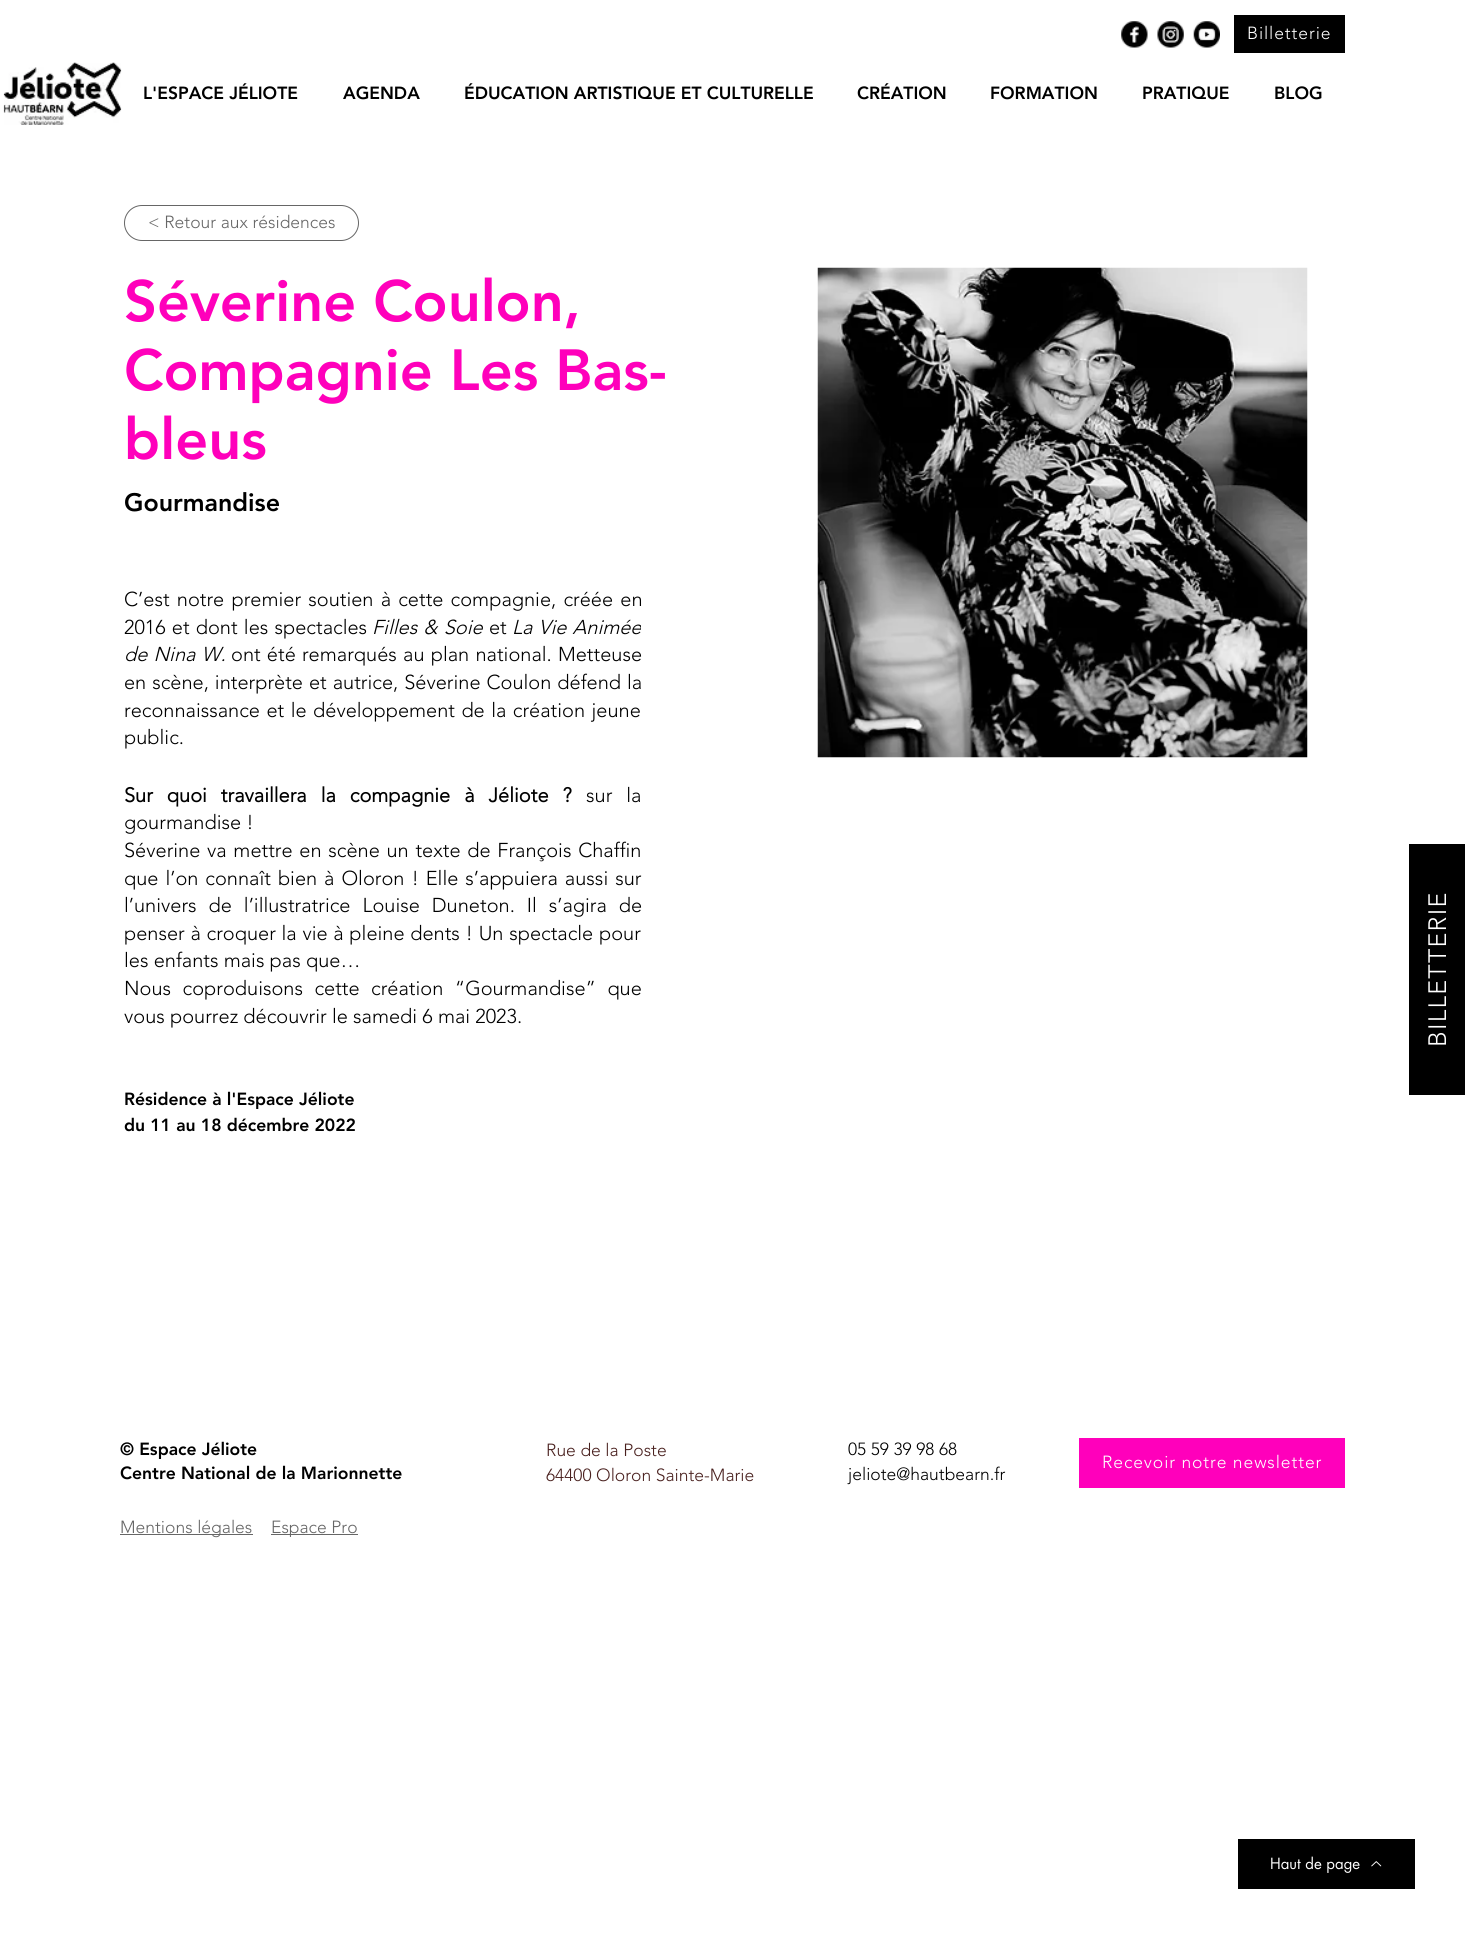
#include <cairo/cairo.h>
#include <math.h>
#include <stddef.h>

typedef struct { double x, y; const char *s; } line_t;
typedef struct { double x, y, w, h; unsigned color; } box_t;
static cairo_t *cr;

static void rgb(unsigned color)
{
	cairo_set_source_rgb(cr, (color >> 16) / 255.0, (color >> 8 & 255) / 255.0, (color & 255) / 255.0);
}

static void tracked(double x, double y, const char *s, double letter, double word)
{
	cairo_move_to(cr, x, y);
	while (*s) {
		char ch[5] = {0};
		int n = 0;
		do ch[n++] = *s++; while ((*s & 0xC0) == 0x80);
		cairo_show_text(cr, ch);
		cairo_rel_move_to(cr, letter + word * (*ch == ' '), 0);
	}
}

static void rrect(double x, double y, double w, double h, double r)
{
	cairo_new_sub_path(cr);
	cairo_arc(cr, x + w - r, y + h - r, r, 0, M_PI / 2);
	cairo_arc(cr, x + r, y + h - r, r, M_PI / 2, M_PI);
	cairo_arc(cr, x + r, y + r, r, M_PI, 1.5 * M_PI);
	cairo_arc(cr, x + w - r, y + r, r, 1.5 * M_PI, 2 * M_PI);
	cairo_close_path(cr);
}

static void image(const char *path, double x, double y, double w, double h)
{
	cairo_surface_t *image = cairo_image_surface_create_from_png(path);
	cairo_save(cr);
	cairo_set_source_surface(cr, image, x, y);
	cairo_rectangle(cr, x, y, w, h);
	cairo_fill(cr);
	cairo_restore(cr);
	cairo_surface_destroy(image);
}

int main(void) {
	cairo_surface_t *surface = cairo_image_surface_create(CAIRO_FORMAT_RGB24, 1465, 1938);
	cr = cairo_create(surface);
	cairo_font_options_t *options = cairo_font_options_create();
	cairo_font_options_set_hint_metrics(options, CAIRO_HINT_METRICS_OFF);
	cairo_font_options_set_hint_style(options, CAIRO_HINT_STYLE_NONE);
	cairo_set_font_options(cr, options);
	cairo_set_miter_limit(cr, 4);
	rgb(0xffffff);
	cairo_paint(cr);
	image("img/1.png", 1121, 21, 27, 27);
	image("img/2.png", 1157, 21, 27, 27);
	image("img/3.png", 1193, 21, 27, 27);
	rgb(0x000000);
	cairo_rectangle(cr, 1234, 15, 111, 38);
	cairo_fill(cr);
	image("img/4.png", 3, 62, 119, 63);
	rrect(124.5, 205.5, 234, 35, 17.5);
	rgb(0x666666);
	cairo_set_line_width(cr, 1);
	cairo_stroke(cr);
	image("img/5.png", 817, 267, 491, 491);
	{
		static const box_t items[] = {
			{1409, 844, 56, 251, 0x000000},
			{1079, 1438, 266, 50, 0xff00bb},
			{120, 1534, 133, 1, 0x666666},
			{271, 1534, 87, 1, 0x666666},
			{1238, 1839, 177, 50, 0x000000},
		};
		for (size_t i = 0; i < sizeof items / sizeof *items; i++) {
			rgb(items[i].color);
			cairo_rectangle(cr, items[i].x, items[i].y, items[i].w, items[i].h);
			cairo_fill(cr);
		}
	}
	image("img/6.png", 1371, 1861, 11, 6);
	cairo_select_font_face(cr, "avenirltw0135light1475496 Light", CAIRO_FONT_SLANT_NORMAL, CAIRO_FONT_WEIGHT_NORMAL);
	cairo_set_font_size(cr, 17.5);
	rgb(0xffffff);
	tracked(1247, 39, "Billetterie", 0.9, 0);
	cairo_select_font_face(cr, "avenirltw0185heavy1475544 Black", CAIRO_FONT_SLANT_NORMAL, CAIRO_FONT_WEIGHT_NORMAL);
	rgb(0x000000);
	{
		static const line_t items[] = {
			{143, 99, "L'ESPACE JÉLIOTE"},
			{343, 99, "AGENDA"},
			{464, 99, "ÉDUCATION ARTISTIQUE ET CULTURELLE"},
			{857, 99, "CRÉATION"},
			{990, 99, "FORMATION"},
			{1142, 99, "PRATIQUE"},
			{1274, 99, "BLOG"},
		};
		for (size_t i = 0; i < sizeof items / sizeof *items; i++) {
			cairo_move_to(cr, items[i].x, items[i].y);
			cairo_show_text(cr, items[i].s);
		}
	}
	cairo_select_font_face(cr, "avenirltw0135light1475496 Light", CAIRO_FONT_SLANT_NORMAL, CAIRO_FONT_WEIGHT_NORMAL);
	rgb(0x666666);
	cairo_move_to(cr, 148, 228);
	cairo_show_text(cr, "< Retour aux résidences");
	cairo_select_font_face(cr, "avenirltw0185heavy1475544 Black", CAIRO_FONT_SLANT_NORMAL, CAIRO_FONT_WEIGHT_NORMAL);
	cairo_set_font_size(cr, 57.5);
	rgb(0xff00bb);
	{
		static const line_t items[] = {
			{124, 321, "Séverine Coulon,"},
			{124, 390, "Compagnie Les Bas-"},
			{124, 459, "bleus"},
		};
		for (size_t i = 0; i < sizeof items / sizeof *items; i++) {
			cairo_move_to(cr, items[i].x, items[i].y);
			cairo_show_text(cr, items[i].s);
		}
	}
	cairo_set_font_size(cr, 25);
	rgb(0x000000);
	cairo_move_to(cr, 124, 511);
	cairo_show_text(cr, "Gourmandise");
	cairo_select_font_face(cr, "avenirltw0135light1475496 Light", CAIRO_FONT_SLANT_NORMAL, CAIRO_FONT_WEIGHT_NORMAL);
	cairo_set_font_size(cr, 20);
	tracked(124, 606, "C’est notre premier soutien à cette compagnie, créée en", 0, 2);
	tracked(124, 634, "2016 et dont les spectacles", 0, 1);
	cairo_select_font_face(cr, "avenirltw0135light1475496 Light", CAIRO_FONT_SLANT_ITALIC, CAIRO_FONT_WEIGHT_NORMAL);
	tracked(372, 634, "Filles & Soie", 0, 1);
	cairo_select_font_face(cr, "avenirltw0135light1475496 Light", CAIRO_FONT_SLANT_NORMAL, CAIRO_FONT_WEIGHT_NORMAL);
	cairo_move_to(cr, 489, 634);
	cairo_show_text(cr, "et");
	cairo_save(cr);
	cairo_rectangle(cr, 124, 586, 517, 444);
	cairo_clip(cr);
	cairo_select_font_face(cr, "avenirltw0135light1475496 Light", CAIRO_FONT_SLANT_ITALIC, CAIRO_FONT_WEIGHT_NORMAL);
	tracked(512, 634, "La Vie Animée", 0, 1);
	cairo_restore(cr);
	cairo_select_font_face(cr, "avenirltw0135light1475496 Light", CAIRO_FONT_SLANT_ITALIC, CAIRO_FONT_WEIGHT_NORMAL);
	tracked(124, 661, "de Nina W.", 0, 1);
	cairo_select_font_face(cr, "avenirltw0135light1475496 Light", CAIRO_FONT_SLANT_NORMAL, CAIRO_FONT_WEIGHT_NORMAL);
	tracked(231, 661, "ont été remarqués au plan national. Metteuse", 0, 1);
	tracked(124, 689, "en scène, interprète et autrice, Séverine Coulon défend la", 0, 0.75);
	tracked(124, 717, "reconnaissance et le développement de la création jeune", 0, 1.25);
	cairo_move_to(cr, 124, 744);
	cairo_show_text(cr, "public.");
	cairo_select_font_face(cr, "avenirltw0135light1475496", CAIRO_FONT_SLANT_NORMAL, CAIRO_FONT_WEIGHT_BOLD);
	tracked(124, 802, "Sur quoi travaillera la compagnie à Jéliote ?", 0, 8.75);
	cairo_select_font_face(cr, "avenirltw0135light1475496 Light", CAIRO_FONT_SLANT_NORMAL, CAIRO_FONT_WEIGHT_NORMAL);
	tracked(586, 802, "sur la", 0, 8.75);
	cairo_move_to(cr, 124, 829);
	cairo_show_text(cr, "gourmandise !");
	tracked(124, 857, "Séverine va mettre en scène un texte de François Chaffin", 0, 1.5);
	tracked(124, 885, "que l’on connaît bien à Oloron ! Elle s’appuiera aussi sur", 0, 1.75);
	tracked(124, 912, "l’univers de l’illustratrice Louise Duneton. Il s’agira de", 0, 6.75);
	tracked(124, 940, "penser à croquer la vie à pleine dents ! Un spectacle pour", 0, 0.5);
	cairo_move_to(cr, 124, 967);
	cairo_show_text(cr, "les enfants mais pas que…");
	tracked(124, 995, "Nous coproduisons cette création “Gourmandise” que", 0, 6.25);
	cairo_move_to(cr, 124, 1023);
	cairo_show_text(cr, "vous pourrez découvrir le samedi 6 mai 2023.");
	cairo_select_font_face(cr, "avenirltw0185heavy1475544 Black", CAIRO_FONT_SLANT_NORMAL, CAIRO_FONT_WEIGHT_NORMAL);
	cairo_set_font_size(cr, 17.5);
	cairo_move_to(cr, 124, 1105);
	cairo_show_text(cr, "Résidence à l'Espace Jéliote");
	cairo_move_to(cr, 124, 1131);
	cairo_show_text(cr, "du 11 au 18 décembre 2022");
	cairo_select_font_face(cr, "avenirltw0135light1475496 Light", CAIRO_FONT_SLANT_NORMAL, CAIRO_FONT_WEIGHT_NORMAL);
	cairo_set_font_size(cr, 25);
	rgb(0xffffff);
	cairo_save(cr);
	cairo_translate(cr, 1446, 1047);
	cairo_rotate(cr, -90 * M_PI / 180);
	tracked(0, 0, "BILLETTERIE", 1.25, 0);
	cairo_restore(cr);
	cairo_select_font_face(cr, "avenirltw0185heavy1475544 Black", CAIRO_FONT_SLANT_NORMAL, CAIRO_FONT_WEIGHT_NORMAL);
	cairo_set_font_size(cr, 17.5);
	rgb(0x000000);
	cairo_move_to(cr, 120, 1455);
	cairo_show_text(cr, "© Espace Jéliote");
	cairo_move_to(cr, 120, 1479);
	cairo_show_text(cr, "Centre National de la Marionnette");
	cairo_select_font_face(cr, "avenirltw0135light1475496 Light", CAIRO_FONT_SLANT_NORMAL, CAIRO_FONT_WEIGHT_NORMAL);
	rgb(0x4a211f);
	cairo_move_to(cr, 546, 1456);
	cairo_show_text(cr, "Rue de la Poste");
	cairo_move_to(cr, 546, 1481);
	cairo_show_text(cr, "64400 Oloron Sainte-Marie");
	rgb(0x000000);
	cairo_move_to(cr, 848, 1455);
	cairo_show_text(cr, "05 59 39 98 68");
	rgb(0xffffff);
	tracked(1102, 1468, "Recevoir notre newsletter", 0.9, 0);
	rgb(0x000000);
	cairo_move_to(cr, 848, 1480);
	cairo_show_text(cr, "jeliote@hautbearn.fr");
	rgb(0x666666);
	cairo_move_to(cr, 120, 1533);
	cairo_show_text(cr, "Mentions légales");
	cairo_move_to(cr, 271, 1533);
	cairo_show_text(cr, "Espace Pro");
	cairo_select_font_face(cr, "futura", CAIRO_FONT_SLANT_NORMAL, CAIRO_FONT_WEIGHT_NORMAL);
	cairo_set_font_size(cr, 15);
	rgb(0xffffff);
	cairo_move_to(cr, 1270, 1869);
	cairo_show_text(cr, "Haut de page");
	cairo_surface_write_to_png(surface, "page.png");
	cairo_font_options_destroy(options);
	cairo_destroy(cr);
	cairo_surface_destroy(surface);
	return 0;
}
